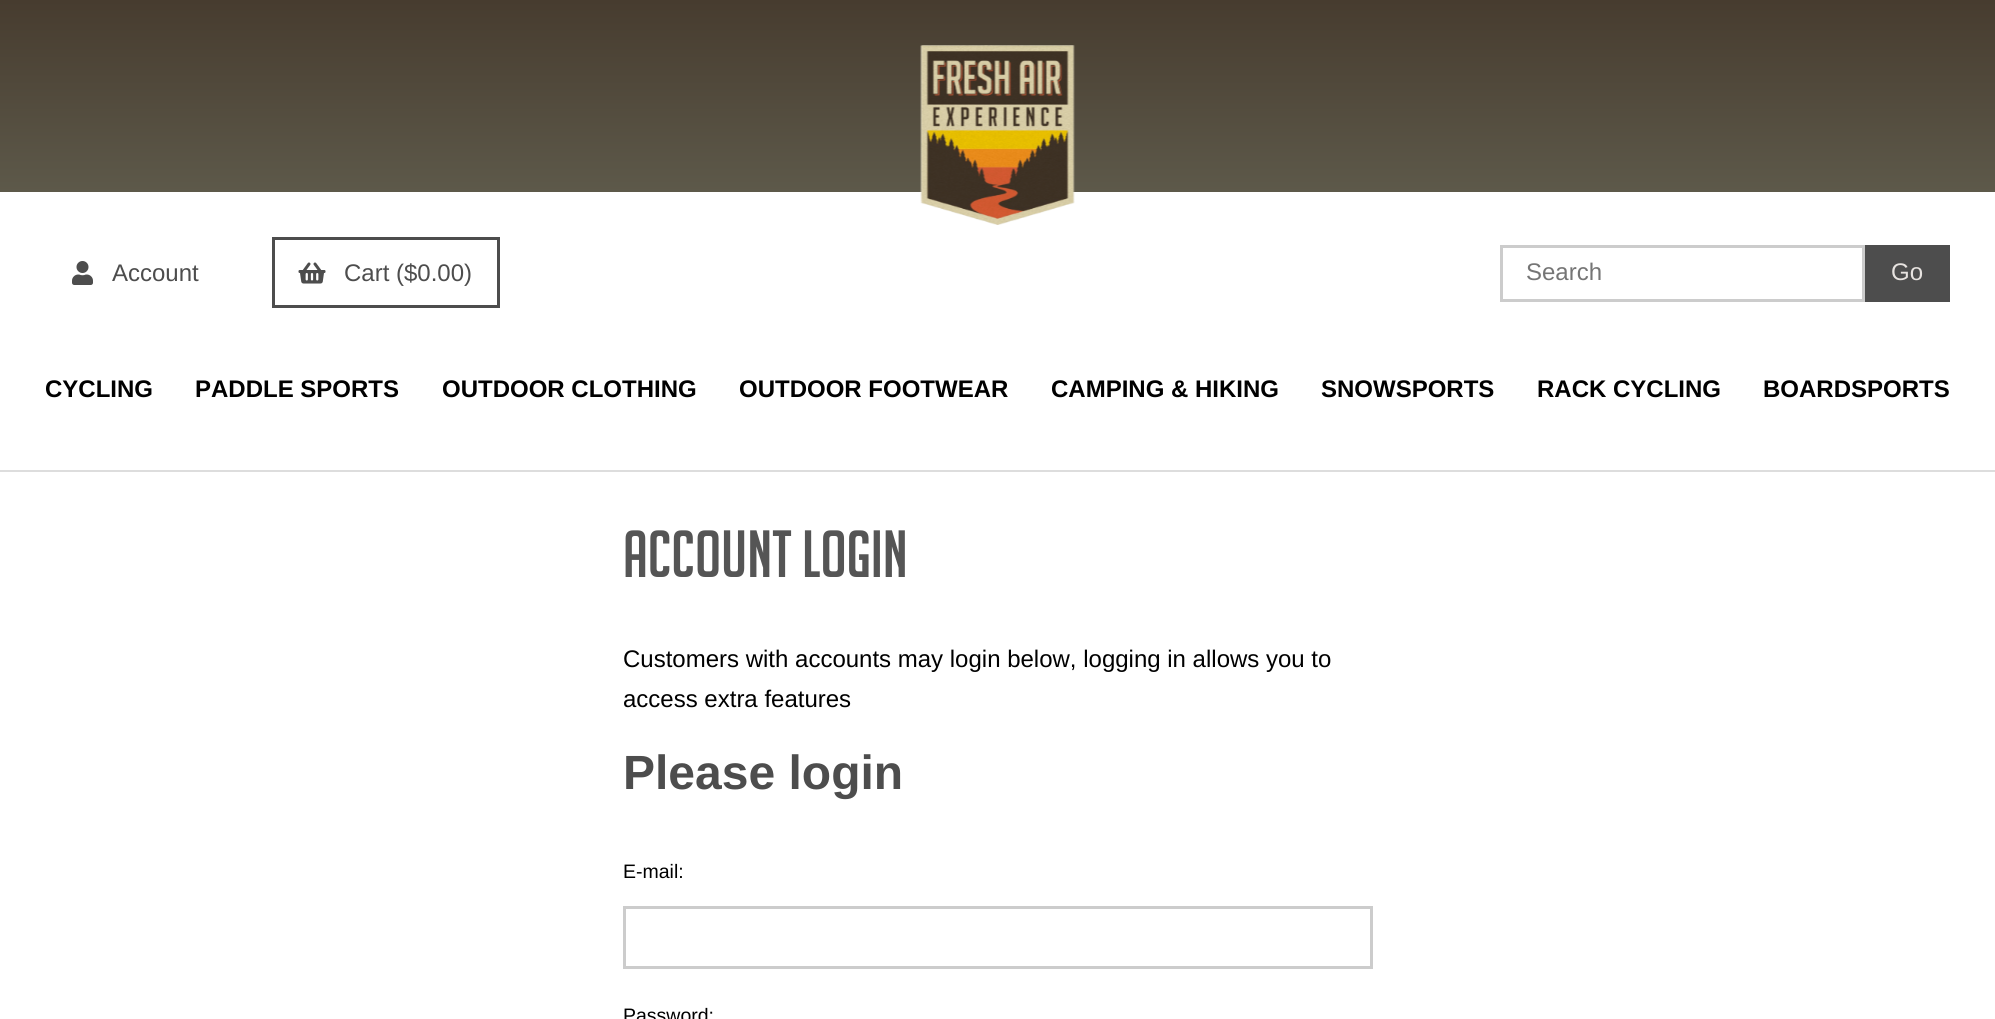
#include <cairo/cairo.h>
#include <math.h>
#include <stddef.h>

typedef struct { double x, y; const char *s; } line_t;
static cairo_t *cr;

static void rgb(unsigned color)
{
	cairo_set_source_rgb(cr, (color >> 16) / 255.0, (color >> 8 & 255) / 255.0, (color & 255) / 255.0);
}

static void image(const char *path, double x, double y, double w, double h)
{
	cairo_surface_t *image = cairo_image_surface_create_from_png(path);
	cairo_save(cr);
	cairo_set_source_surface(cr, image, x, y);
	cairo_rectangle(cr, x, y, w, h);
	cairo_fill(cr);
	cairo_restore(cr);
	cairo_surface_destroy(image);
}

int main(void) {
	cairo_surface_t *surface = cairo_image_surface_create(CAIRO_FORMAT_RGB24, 1995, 1019);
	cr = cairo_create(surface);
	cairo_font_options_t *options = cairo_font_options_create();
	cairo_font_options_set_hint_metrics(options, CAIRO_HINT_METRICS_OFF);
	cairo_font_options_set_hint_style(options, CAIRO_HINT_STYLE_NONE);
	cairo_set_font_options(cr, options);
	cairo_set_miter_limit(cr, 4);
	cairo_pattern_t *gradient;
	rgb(0xffffff);
	cairo_paint(cr);
	gradient = cairo_pattern_create_linear(998, 0, 998, 192);
	cairo_pattern_add_color_stop_rgba(gradient, 0, 0.278, 0.235, 0.184, 1);
	cairo_pattern_add_color_stop_rgba(gradient, 1, 0.365, 0.349, 0.29, 1);
	cairo_set_source(cr, gradient);
	cairo_pattern_destroy(gradient);
	cairo_rectangle(cr, 0, 0, 1995, 192);
	cairo_fill(cr);
	image("img/1.png", 920, 45, 155, 180);
	rgb(0xdddddd);
	cairo_rectangle(cr, 0, 470, 1995, 2);
	cairo_fill(cr);
	image("img/2.png", 72, 261, 21, 24);
	cairo_rectangle(cr, 273.5, 238.5, 225, 68);
	rgb(0x4d4d4d);
	cairo_set_line_width(cr, 3);
	cairo_stroke(cr);
	image("img/3.png", 298, 262, 28, 22);
	cairo_rectangle(cr, 1501.5, 246.5, 362, 54);
	rgb(0xcccccc);
	cairo_stroke(cr);
	rgb(0x4d4d4d);
	cairo_rectangle(cr, 1865, 245, 85, 57);
	cairo_fill(cr);
	cairo_rectangle(cr, 624.5, 907.5, 747, 60);
	rgb(0xcccccc);
	cairo_stroke(cr);
	cairo_select_font_face(cr, "Liberation Sans", CAIRO_FONT_SLANT_NORMAL, CAIRO_FONT_WEIGHT_NORMAL);
	cairo_set_font_size(cr, 24);
	rgb(0x4d4d4d);
	cairo_move_to(cr, 112, 281);
	cairo_show_text(cr, "Account");
	cairo_move_to(cr, 344, 281);
	cairo_show_text(cr, "Cart ($0.00)");
	rgb(0x757575);
	cairo_move_to(cr, 1526, 280);
	cairo_show_text(cr, "Search");
	rgb(0xe7e3e0);
	cairo_move_to(cr, 1891, 280);
	cairo_show_text(cr, "Go");
	cairo_select_font_face(cr, "Liberation Sans", CAIRO_FONT_SLANT_NORMAL, CAIRO_FONT_WEIGHT_BOLD);
	rgb(0x000000);
	{
		static const line_t items[] = {
			{45, 397, "CYCLING"},
			{195, 397, "PADDLE SPORTS"},
			{442, 397, "OUTDOOR CLOTHING"},
			{739, 397, "OUTDOOR FOOTWEAR"},
			{1051, 397, "CAMPING & HIKING"},
			{1321, 397, "SNOWSPORTS"},
			{1537, 397, "RACK CYCLING"},
			{1763, 397, "BOARDSPORTS"},
		};
		for (size_t i = 0; i < sizeof items / sizeof *items; i++) {
			cairo_move_to(cr, items[i].x, items[i].y);
			cairo_show_text(cr, items[i].s);
		}
	}
	cairo_select_font_face(cr, "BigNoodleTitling", CAIRO_FONT_SLANT_NORMAL, CAIRO_FONT_WEIGHT_NORMAL);
	cairo_set_font_size(cr, 65);
	rgb(0x555555);
	cairo_move_to(cr, 623, 577);
	cairo_show_text(cr, "Account Login");
	cairo_select_font_face(cr, "Liberation Sans", CAIRO_FONT_SLANT_NORMAL, CAIRO_FONT_WEIGHT_NORMAL);
	cairo_set_font_size(cr, 24);
	rgb(0x000000);
	cairo_move_to(cr, 623, 667);
	cairo_show_text(cr, "Customers with accounts may login below, logging in allows you to");
	cairo_move_to(cr, 623, 707);
	cairo_show_text(cr, "access extra features");
	cairo_select_font_face(cr, "Liberation Sans", CAIRO_FONT_SLANT_NORMAL, CAIRO_FONT_WEIGHT_BOLD);
	cairo_set_font_size(cr, 48);
	rgb(0x4d4d4d);
	cairo_move_to(cr, 623, 789);
	cairo_show_text(cr, "Please login");
	cairo_select_font_face(cr, "Liberation Sans", CAIRO_FONT_SLANT_NORMAL, CAIRO_FONT_WEIGHT_NORMAL);
	cairo_set_font_size(cr, 19.5);
	rgb(0x000000);
	cairo_move_to(cr, 623, 878);
	cairo_show_text(cr, "E-mail:");
	cairo_move_to(cr, 623, 1022);
	cairo_show_text(cr, "Password:");
	cairo_surface_write_to_png(surface, "page.png");
	cairo_font_options_destroy(options);
	cairo_destroy(cr);
	cairo_surface_destroy(surface);
	return 0;
}
